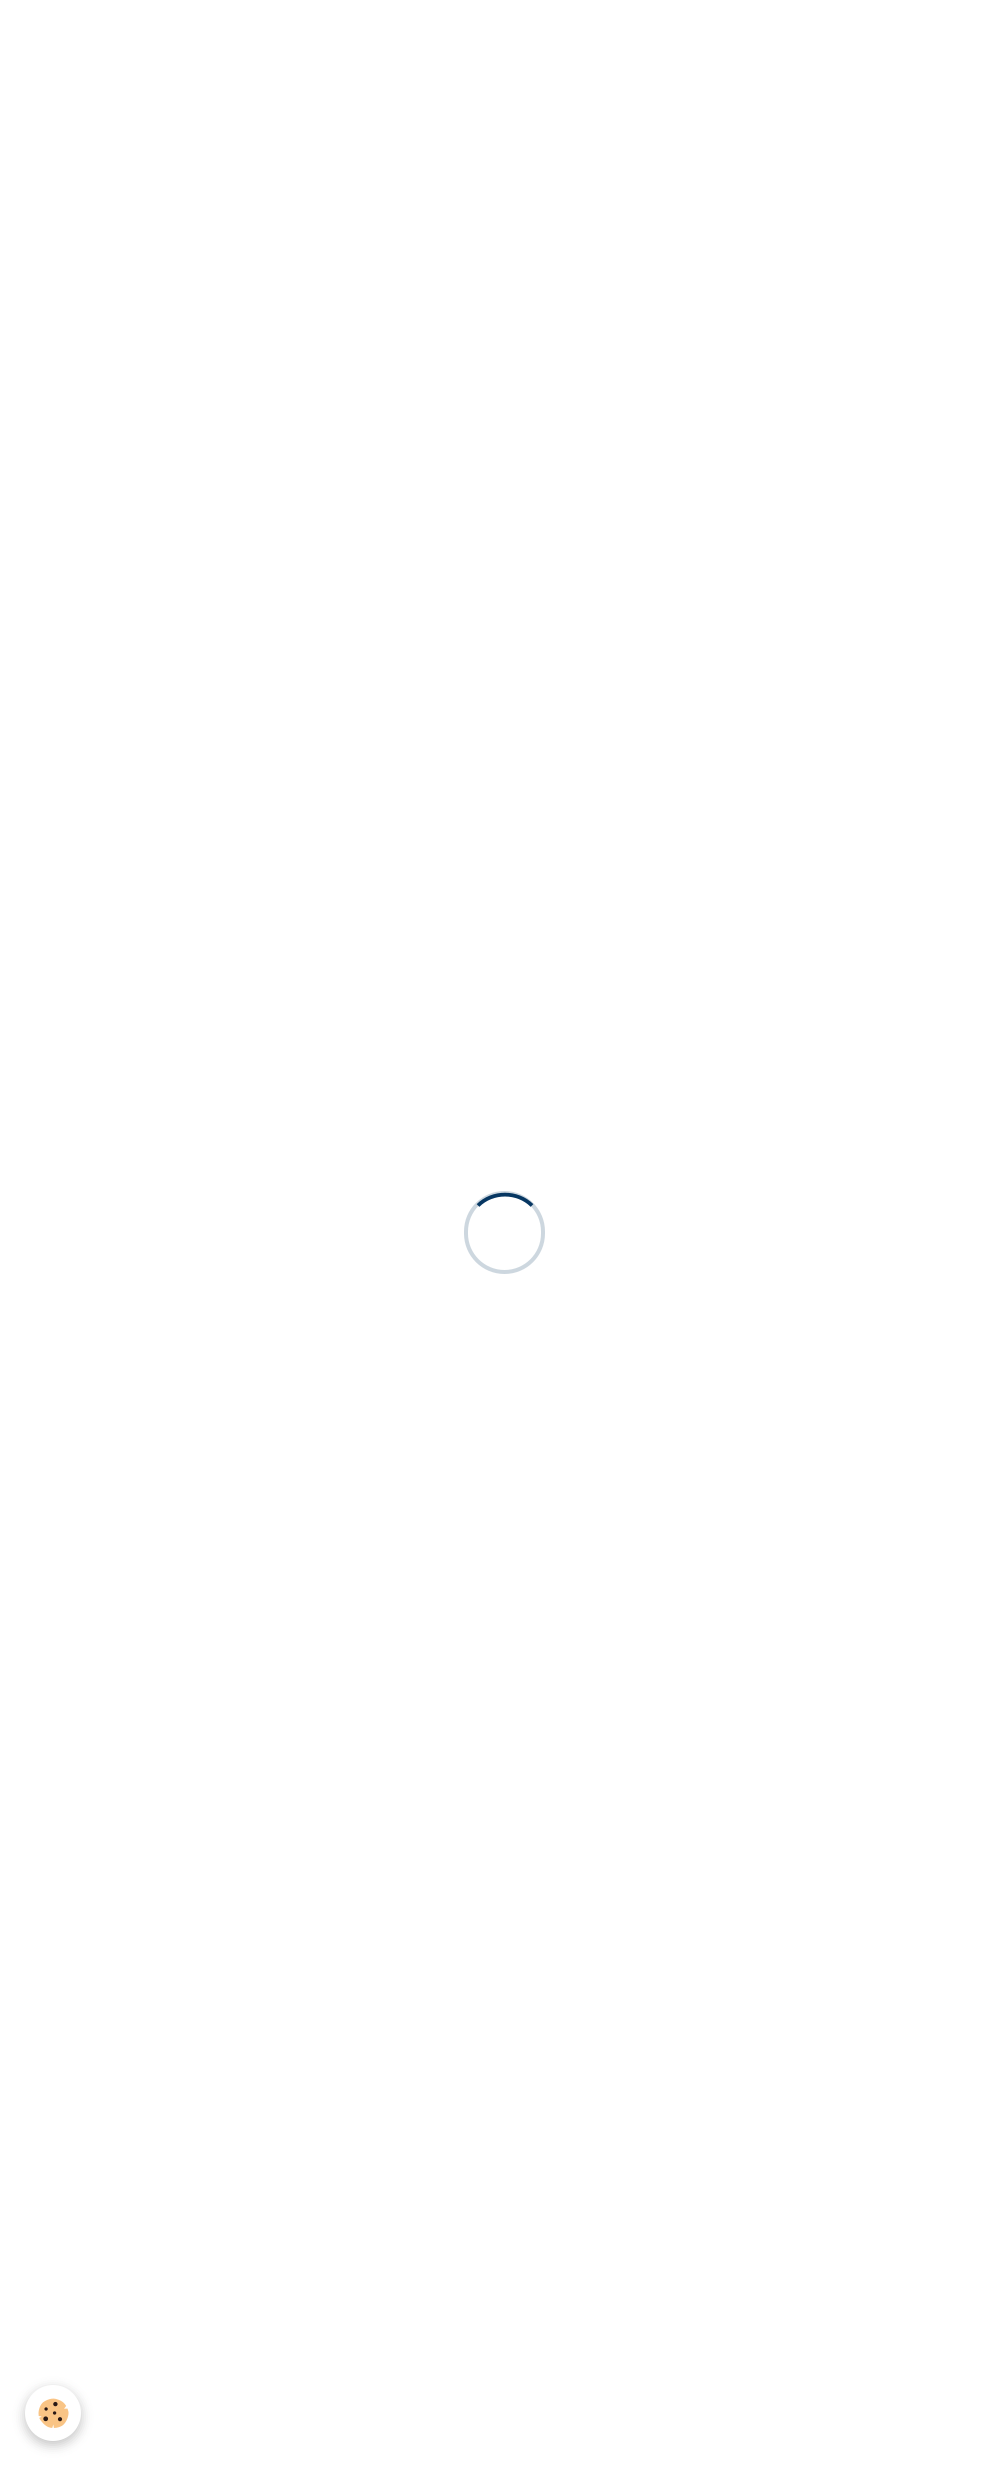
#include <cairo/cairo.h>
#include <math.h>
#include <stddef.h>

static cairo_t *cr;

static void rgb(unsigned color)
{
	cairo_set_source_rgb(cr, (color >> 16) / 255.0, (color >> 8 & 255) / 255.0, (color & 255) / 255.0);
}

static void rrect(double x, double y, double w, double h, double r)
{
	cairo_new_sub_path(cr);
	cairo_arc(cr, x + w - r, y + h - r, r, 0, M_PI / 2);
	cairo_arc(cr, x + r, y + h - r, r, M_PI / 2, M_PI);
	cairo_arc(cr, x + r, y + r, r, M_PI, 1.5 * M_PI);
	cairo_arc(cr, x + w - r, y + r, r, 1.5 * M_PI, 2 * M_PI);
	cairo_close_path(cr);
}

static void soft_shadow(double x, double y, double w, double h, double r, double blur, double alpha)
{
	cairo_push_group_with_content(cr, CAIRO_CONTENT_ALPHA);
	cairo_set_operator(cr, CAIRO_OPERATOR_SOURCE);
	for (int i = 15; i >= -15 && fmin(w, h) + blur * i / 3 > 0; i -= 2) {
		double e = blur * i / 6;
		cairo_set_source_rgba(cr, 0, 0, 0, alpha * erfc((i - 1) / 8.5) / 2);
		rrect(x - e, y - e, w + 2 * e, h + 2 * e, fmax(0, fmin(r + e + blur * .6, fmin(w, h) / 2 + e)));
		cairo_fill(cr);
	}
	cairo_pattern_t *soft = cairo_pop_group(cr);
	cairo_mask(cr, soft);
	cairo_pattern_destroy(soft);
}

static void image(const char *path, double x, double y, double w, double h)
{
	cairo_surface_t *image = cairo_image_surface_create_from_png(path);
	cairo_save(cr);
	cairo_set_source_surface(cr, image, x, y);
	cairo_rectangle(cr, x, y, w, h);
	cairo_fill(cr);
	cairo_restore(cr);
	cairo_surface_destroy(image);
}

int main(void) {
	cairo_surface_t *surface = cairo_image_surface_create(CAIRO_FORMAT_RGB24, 1008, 2465);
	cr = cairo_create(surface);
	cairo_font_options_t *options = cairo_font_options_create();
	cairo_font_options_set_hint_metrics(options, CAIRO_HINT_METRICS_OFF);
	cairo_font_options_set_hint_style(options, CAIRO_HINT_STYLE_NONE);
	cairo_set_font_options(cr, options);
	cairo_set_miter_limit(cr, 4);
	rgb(0xffffff);
	cairo_paint(cr);
	cairo_new_path(cr);
	cairo_move_to(cr, 478, 1205.5);
	cairo_curve_to(cr, 492.5, 1191, 517.5, 1191, 532, 1205.5);
	rgb(0x073763);
	cairo_set_line_width(cr, 3.8);
	cairo_stroke(cr);
	rrect(466, 1193, 77, 79, 38.5);
	cairo_set_source_rgba(cr, 0.027, 0.216, 0.388, 0.2);
	cairo_set_line_width(cr, 4);
	cairo_stroke(cr);
	rgb(0x000000);
	soft_shadow(25, 2389, 56, 56, 28, 6, 0.24);
	rgb(0xffffff);
	cairo_arc(cr, 53, 2413, 28, 0, 2 * M_PI);
	cairo_fill(cr);
	image("img/1.png", 38, 2398, 31, 30);
	cairo_surface_write_to_png(surface, "page.png");
	cairo_font_options_destroy(options);
	cairo_destroy(cr);
	cairo_surface_destroy(surface);
	return 0;
}
